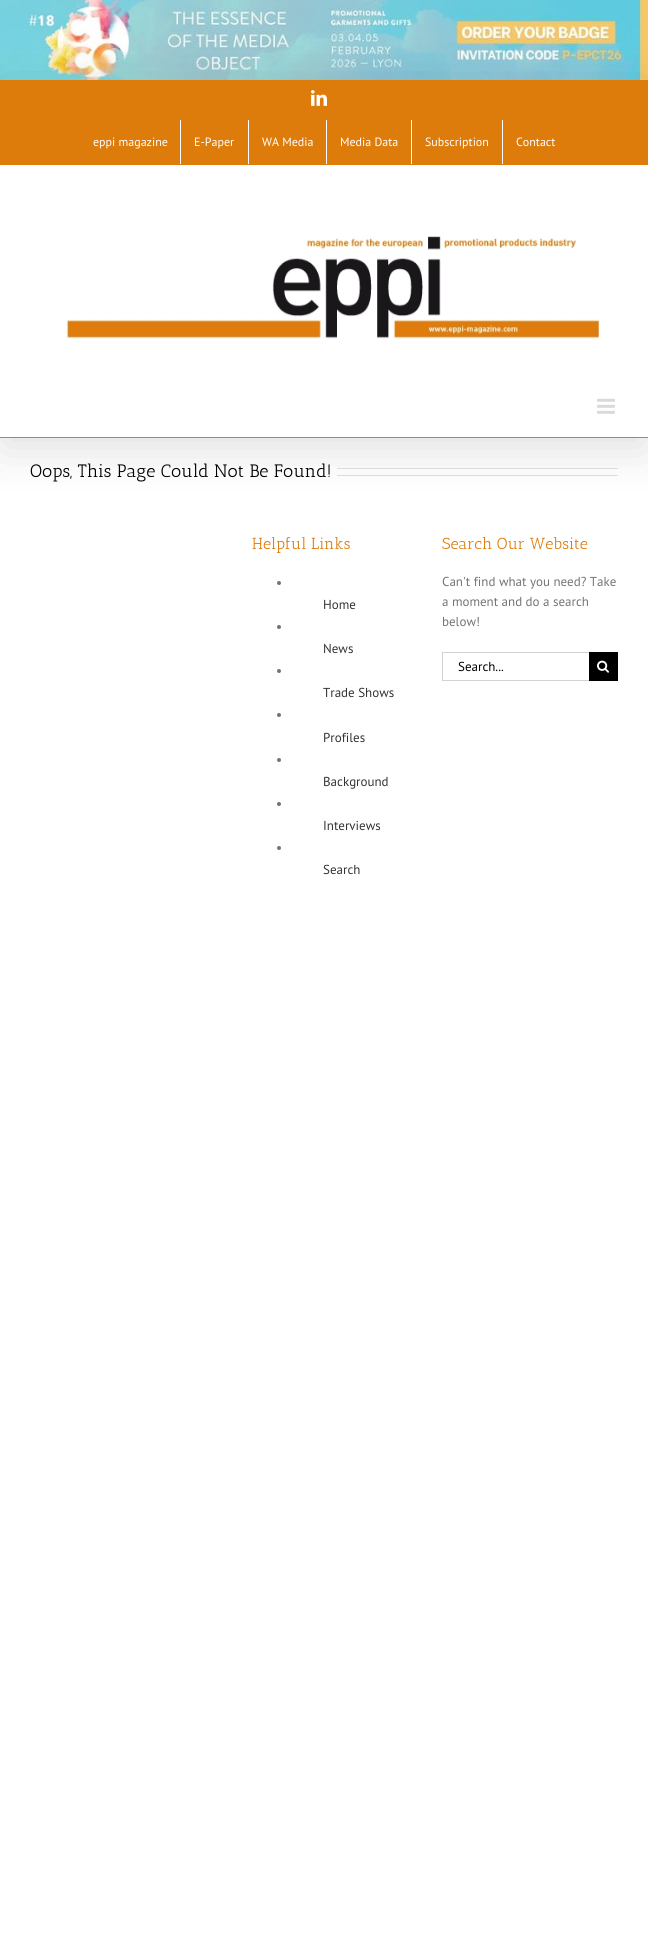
#include <cairo/cairo.h>
#include <math.h>
#include <stddef.h>

typedef struct { double x, y; const char *s; } line_t;
typedef struct { double x, y, w, h; unsigned color; } box_t;
static cairo_t *cr;

static void rgb(unsigned color)
{
	cairo_set_source_rgb(cr, (color >> 16) / 255.0, (color >> 8 & 255) / 255.0, (color & 255) / 255.0);
}

static void rrect(double x, double y, double w, double h, double r)
{
	cairo_new_sub_path(cr);
	cairo_arc(cr, x + w - r, y + h - r, r, 0, M_PI / 2);
	cairo_arc(cr, x + r, y + h - r, r, M_PI / 2, M_PI);
	cairo_arc(cr, x + r, y + r, r, M_PI, 1.5 * M_PI);
	cairo_arc(cr, x + w - r, y + r, r, 1.5 * M_PI, 2 * M_PI);
	cairo_close_path(cr);
}

static void soft_shadow(double x, double y, double w, double h, double r, double blur, double alpha)
{
	cairo_push_group_with_content(cr, CAIRO_CONTENT_ALPHA);
	cairo_set_operator(cr, CAIRO_OPERATOR_SOURCE);
	for (int i = 15; i >= -15 && fmin(w, h) + blur * i / 3 > 0; i -= 2) {
		double e = blur * i / 6;
		cairo_set_source_rgba(cr, 0, 0, 0, alpha * erfc((i - 1) / 8.5) / 2);
		rrect(x - e, y - e, w + 2 * e, h + 2 * e, fmax(0, fmin(r + e + blur * .6, fmin(w, h) / 2 + e)));
		cairo_fill(cr);
	}
	cairo_pattern_t *soft = cairo_pop_group(cr);
	cairo_mask(cr, soft);
	cairo_pattern_destroy(soft);
}

static void image(const char *path, double x, double y, double w, double h)
{
	cairo_surface_t *image = cairo_image_surface_create_from_png(path);
	cairo_save(cr);
	cairo_set_source_surface(cr, image, x, y);
	cairo_rectangle(cr, x, y, w, h);
	cairo_fill(cr);
	cairo_restore(cr);
	cairo_surface_destroy(image);
}

int main(void) {
	cairo_surface_t *surface = cairo_image_surface_create(CAIRO_FORMAT_RGB24, 648, 1941);
	cr = cairo_create(surface);
	cairo_font_options_t *options = cairo_font_options_create();
	cairo_font_options_set_hint_metrics(options, CAIRO_HINT_METRICS_OFF);
	cairo_font_options_set_hint_style(options, CAIRO_HINT_STYLE_NONE);
	cairo_set_font_options(cr, options);
	cairo_set_miter_limit(cr, 4);
	rgb(0xffffff);
	cairo_paint(cr);
	image("img/1.png", 0, 0, 648, 80);
	rgb(0xe0dede);
	cairo_rectangle(cr, 337, 468, 281, 1);
	cairo_fill(cr);
	cairo_rectangle(cr, 337, 475, 281, 1);
	cairo_fill(cr);
	rgb(0x000000);
	soft_shadow(2, 92, 644, 354, 0, 25, 0.14);
	rgb(0xde7c0b);
	cairo_rectangle(cr, 0, 80, 648, 85);
	cairo_fill(cr);
	image("img/2.png", 311, 90, 16, 16);
	{
		static const box_t items[] = {
			{180, 120, 1, 44, 0xffffff},
			{248, 120, 1, 44, 0xffffff},
			{326, 120, 1, 44, 0xffffff},
			{411, 120, 1, 44, 0xffffff},
			{502, 120, 1, 44, 0xffffff},
			{0, 165, 648, 272, 0xffffff},
			{0, 437, 648, 1, 0xde7c0b},
		};
		for (size_t i = 0; i < sizeof items / sizeof *items; i++) {
			rgb(items[i].color);
			cairo_rectangle(cr, items[i].x, items[i].y, items[i].w, items[i].h);
			cairo_fill(cr);
		}
	}
	image("img/3.png", 66, 236, 534, 103);
	image("img/4.png", 597, 398, 18, 16);
	rgb(0x747474);
	cairo_arc(cr, 279, 583, 2, 0, 2 * M_PI);
	cairo_fill(cr);
	cairo_arc(cr, 279, 627, 2, 0, 2 * M_PI);
	cairo_fill(cr);
	cairo_arc(cr, 279, 671, 2, 0, 2 * M_PI);
	cairo_fill(cr);
	cairo_arc(cr, 279, 715, 2, 0, 2 * M_PI);
	cairo_fill(cr);
	cairo_arc(cr, 279, 760, 2, 0, 2 * M_PI);
	cairo_fill(cr);
	cairo_arc(cr, 279, 804, 2, 0, 2 * M_PI);
	cairo_fill(cr);
	cairo_arc(cr, 279, 848, 2, 0, 2 * M_PI);
	cairo_fill(cr);
	{
		static const box_t items[] = {
			{442, 652, 147, 1, 0xd2d2d2},
			{442, 680, 147, 1, 0xd2d2d2},
			{442, 652, 1, 29, 0xd2d2d2},
			{589, 652, 29, 29, 0x000000},
		};
		for (size_t i = 0; i < sizeof items / sizeof *items; i++) {
			rgb(items[i].color);
			cairo_rectangle(cr, items[i].x, items[i].y, items[i].w, items[i].h);
			cairo_fill(cr);
		}
	}
	image("img/5.png", 597, 660, 12, 13);
	cairo_select_font_face(cr, "PT Sans", CAIRO_FONT_SLANT_NORMAL, CAIRO_FONT_WEIGHT_NORMAL);
	cairo_set_font_size(cr, 12);
	rgb(0xffffff);
	{
		static const line_t items[] = {
			{93, 146, "eppi magazine"},
			{194, 146, "E-Paper"},
			{262, 146, "WA Media"},
			{340, 146, "Media Data"},
			{425, 146, "Subscription"},
			{516, 146, "Contact"},
		};
		for (size_t i = 0; i < sizeof items / sizeof *items; i++) {
			cairo_move_to(cr, items[i].x, items[i].y);
			cairo_show_text(cr, items[i].s);
		}
	}
	cairo_select_font_face(cr, "Antic Slab", CAIRO_FONT_SLANT_NORMAL, CAIRO_FONT_WEIGHT_NORMAL);
	cairo_set_font_size(cr, 18);
	rgb(0x000000);
	cairo_move_to(cr, 30, 477);
	cairo_show_text(cr, "Oops, This Page Could Not Be Found!");
	cairo_set_font_size(cr, 16);
	rgb(0xde7c0b);
	cairo_move_to(cr, 252, 549);
	cairo_show_text(cr, "Helpful Links");
	cairo_select_font_face(cr, "PT Sans", CAIRO_FONT_SLANT_NORMAL, CAIRO_FONT_WEIGHT_NORMAL);
	cairo_set_font_size(cr, 13);
	rgb(0x333333);
	{
		static const line_t items[] = {
			{323, 609, "Home"},
			{323, 653, "News"},
			{323, 697, "Trade Shows"},
			{323, 742, "Profiles"},
			{323, 786, "Background"},
			{323, 830, "Interviews"},
			{323, 874, "Search"},
		};
		for (size_t i = 0; i < sizeof items / sizeof *items; i++) {
			cairo_move_to(cr, items[i].x, items[i].y);
			cairo_show_text(cr, items[i].s);
		}
	}
	cairo_select_font_face(cr, "Antic Slab", CAIRO_FONT_SLANT_NORMAL, CAIRO_FONT_WEIGHT_NORMAL);
	cairo_set_font_size(cr, 16);
	rgb(0xde7c0b);
	cairo_move_to(cr, 442, 549);
	cairo_show_text(cr, "Search Our Website");
	cairo_select_font_face(cr, "PT Sans", CAIRO_FONT_SLANT_NORMAL, CAIRO_FONT_WEIGHT_NORMAL);
	cairo_set_font_size(cr, 13);
	rgb(0x747474);
	{
		static const line_t items[] = {
			{442, 586, "Can't find what you need? Take"},
			{442, 606, "a moment and do a search"},
			{442, 626, "below!"},
		};
		for (size_t i = 0; i < sizeof items / sizeof *items; i++) {
			cairo_move_to(cr, items[i].x, items[i].y);
			cairo_show_text(cr, items[i].s);
		}
	}
	rgb(0x000000);
	cairo_move_to(cr, 458, 671);
	cairo_show_text(cr, "Search...");
	cairo_surface_write_to_png(surface, "page.png");
	cairo_font_options_destroy(options);
	cairo_destroy(cr);
	cairo_surface_destroy(surface);
	return 0;
}
